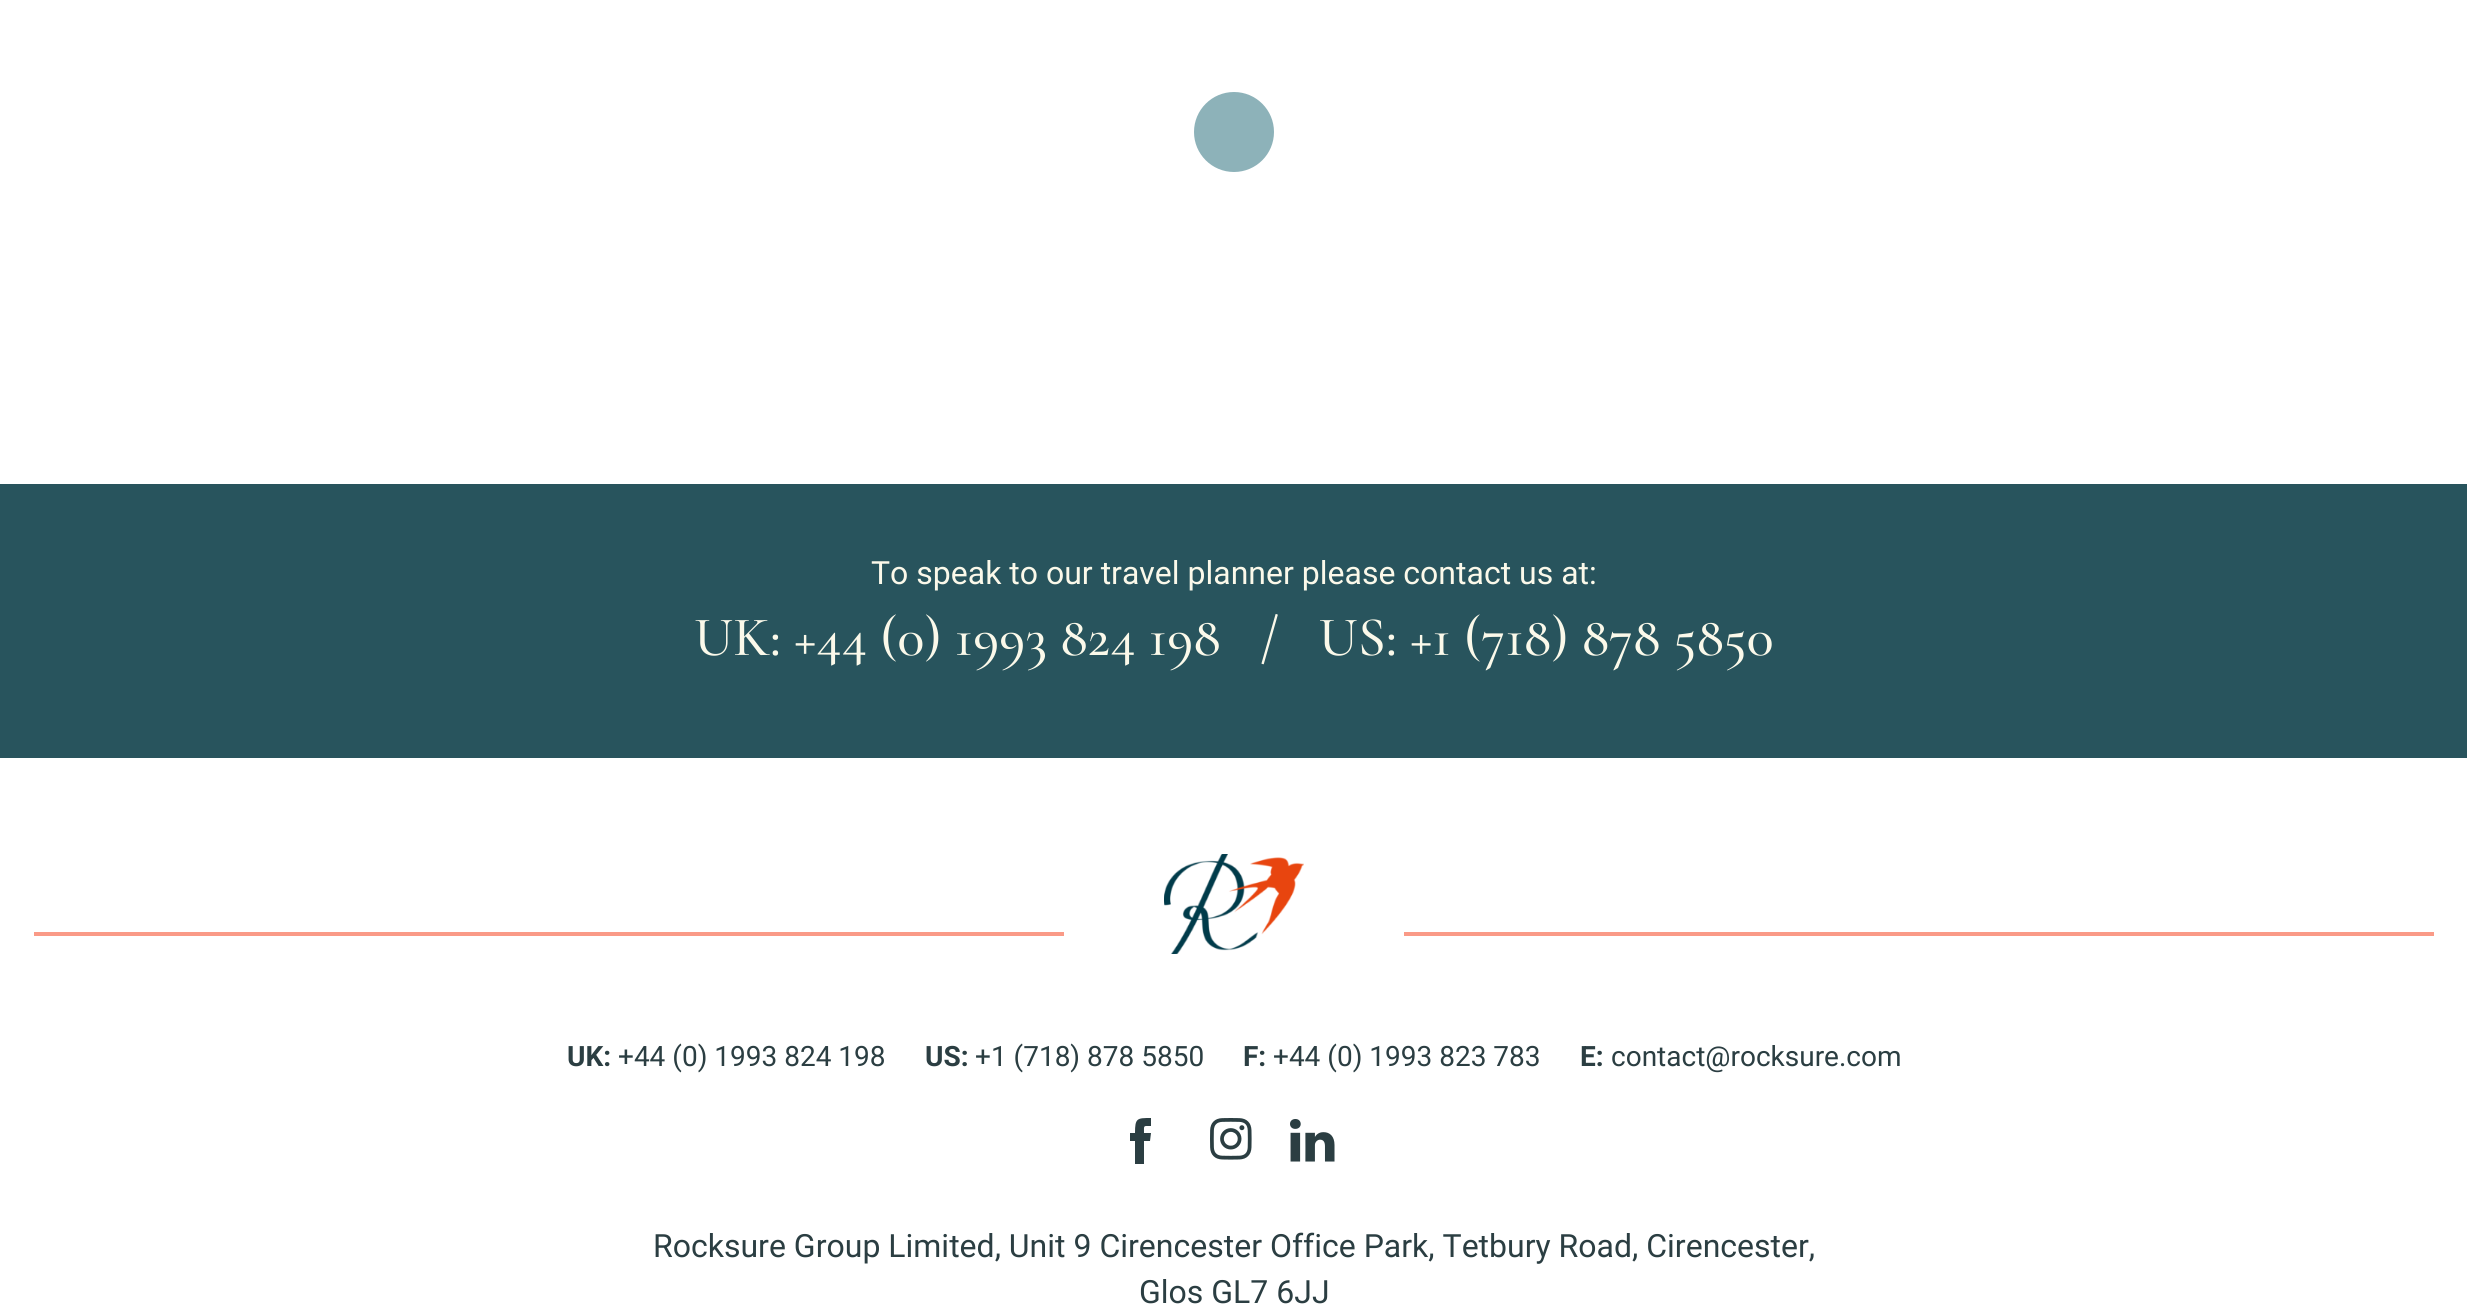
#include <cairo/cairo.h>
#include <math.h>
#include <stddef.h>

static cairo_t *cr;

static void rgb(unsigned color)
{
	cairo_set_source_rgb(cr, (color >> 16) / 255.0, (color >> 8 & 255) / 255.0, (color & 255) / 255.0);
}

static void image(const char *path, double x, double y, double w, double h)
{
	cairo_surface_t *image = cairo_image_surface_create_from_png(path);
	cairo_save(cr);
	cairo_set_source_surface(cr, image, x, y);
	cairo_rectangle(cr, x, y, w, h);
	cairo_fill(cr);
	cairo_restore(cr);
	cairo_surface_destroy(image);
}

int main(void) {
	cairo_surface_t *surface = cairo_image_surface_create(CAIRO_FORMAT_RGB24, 2467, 1309);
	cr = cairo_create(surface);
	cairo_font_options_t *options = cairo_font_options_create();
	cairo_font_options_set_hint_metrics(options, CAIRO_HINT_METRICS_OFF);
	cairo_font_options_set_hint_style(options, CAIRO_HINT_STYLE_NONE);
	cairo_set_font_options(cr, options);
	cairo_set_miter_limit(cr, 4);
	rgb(0xffffff);
	cairo_paint(cr);
	rgb(0x8db2b9);
	cairo_arc(cr, 1234, 132, 40, 0, 2 * M_PI);
	cairo_fill(cr);
	rgb(0x28545d);
	cairo_rectangle(cr, 0, 484, 2467, 274);
	cairo_fill(cr);
	rgb(0xfa9a87);
	cairo_rectangle(cr, 34, 932, 1030, 4);
	cairo_fill(cr);
	image("img/1.png", 1164, 854, 140, 100);
	cairo_rectangle(cr, 1404, 932, 1030, 4);
	cairo_fill(cr);
	rgb(0x2b3e42);
	cairo_new_path(cr);
	cairo_move_to(cr, 1135, 1164);
	cairo_line_to(cr, 1144, 1164);
	cairo_line_to(cr, 1144, 1141);
	cairo_line_to(cr, 1150, 1141);
	cairo_line_to(cr, 1151, 1133);
	cairo_line_to(cr, 1144, 1133);
	cairo_curve_to(cr, 1144, 1125, 1143, 1126, 1151, 1126);
	cairo_line_to(cr, 1151, 1118);
	cairo_curve_to(cr, 1137, 1118, 1135, 1118, 1135, 1133);
	cairo_line_to(cr, 1130, 1133);
	cairo_line_to(cr, 1130, 1141);
	cairo_line_to(cr, 1135, 1141);
	cairo_close_path(cr);
	cairo_fill(cr);
	image("img/2.png", 1210, 1118, 42, 42);
	image("img/3.png", 1290, 1119, 45, 43);
	cairo_select_font_face(cr, "Roboto", CAIRO_FONT_SLANT_NORMAL, CAIRO_FONT_WEIGHT_NORMAL);
	cairo_set_font_size(cr, 32);
	rgb(0xfbf9ea);
	cairo_move_to(cr, 871, 584);
	cairo_show_text(cr, "To speak to our travel planner please contact us at:");
	cairo_select_font_face(cr, "Cormorant Garamond Light", CAIRO_FONT_SLANT_NORMAL, CAIRO_FONT_WEIGHT_NORMAL);
	cairo_set_font_size(cr, 56);
	cairo_move_to(cr, 694, 655);
	cairo_show_text(cr, "UK: +44 (0) 1993 824 198   /   US: +1 (718) 878 5850");
	cairo_select_font_face(cr, "Roboto", CAIRO_FONT_SLANT_NORMAL, CAIRO_FONT_WEIGHT_BOLD);
	cairo_set_font_size(cr, 28);
	rgb(0x2b3e42);
	cairo_move_to(cr, 567, 1066);
	cairo_show_text(cr, "UK:");
	cairo_select_font_face(cr, "Roboto", CAIRO_FONT_SLANT_NORMAL, CAIRO_FONT_WEIGHT_NORMAL);
	cairo_move_to(cr, 618, 1066);
	cairo_show_text(cr, "+44 (0) 1993 824 198");
	cairo_select_font_face(cr, "Roboto", CAIRO_FONT_SLANT_NORMAL, CAIRO_FONT_WEIGHT_BOLD);
	cairo_move_to(cr, 925, 1066);
	cairo_show_text(cr, "US:");
	cairo_select_font_face(cr, "Roboto", CAIRO_FONT_SLANT_NORMAL, CAIRO_FONT_WEIGHT_NORMAL);
	cairo_move_to(cr, 975, 1066);
	cairo_show_text(cr, "+1 (718) 878 5850");
	cairo_select_font_face(cr, "Roboto", CAIRO_FONT_SLANT_NORMAL, CAIRO_FONT_WEIGHT_BOLD);
	cairo_move_to(cr, 1243, 1066);
	cairo_show_text(cr, "F:");
	cairo_select_font_face(cr, "Roboto", CAIRO_FONT_SLANT_NORMAL, CAIRO_FONT_WEIGHT_NORMAL);
	cairo_move_to(cr, 1273, 1066);
	cairo_show_text(cr, "+44 (0) 1993 823 783");
	cairo_select_font_face(cr, "Roboto", CAIRO_FONT_SLANT_NORMAL, CAIRO_FONT_WEIGHT_BOLD);
	cairo_move_to(cr, 1580, 1066);
	cairo_show_text(cr, "E:");
	cairo_select_font_face(cr, "Roboto", CAIRO_FONT_SLANT_NORMAL, CAIRO_FONT_WEIGHT_NORMAL);
	cairo_move_to(cr, 1611, 1066);
	cairo_show_text(cr, "contact@rocksure.com");
	cairo_set_font_size(cr, 32);
	cairo_move_to(cr, 653, 1257);
	cairo_show_text(cr, "Rocksure Group Limited, Unit 9 Cirencester Office Park, Tetbury Road, Cirencester,");
	cairo_move_to(cr, 1139, 1303);
	cairo_show_text(cr, "Glos GL7 6JJ");
	cairo_surface_write_to_png(surface, "page.png");
	cairo_font_options_destroy(options);
	cairo_destroy(cr);
	cairo_surface_destroy(surface);
	return 0;
}
